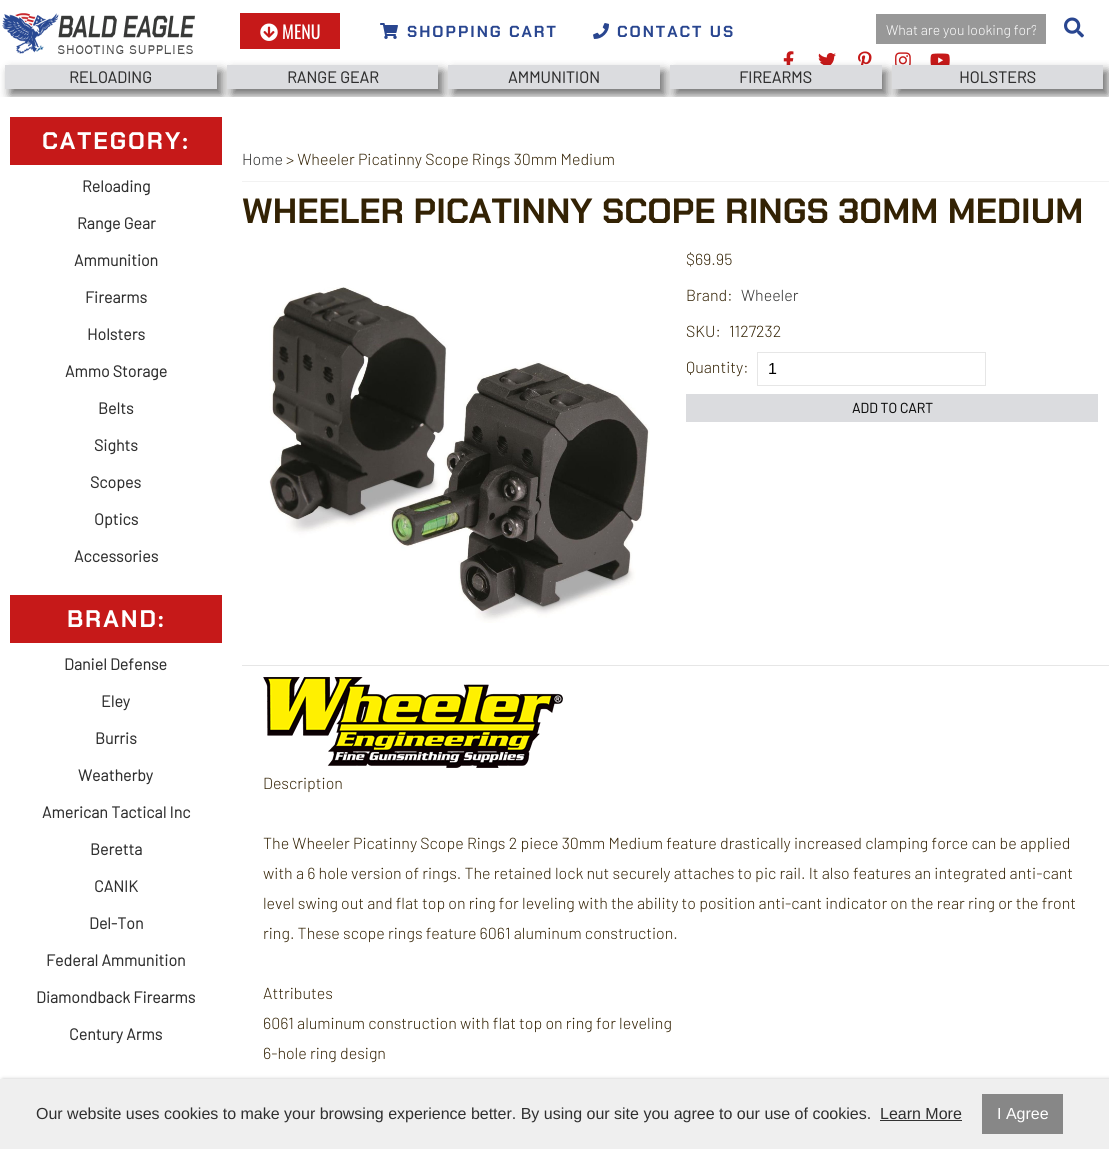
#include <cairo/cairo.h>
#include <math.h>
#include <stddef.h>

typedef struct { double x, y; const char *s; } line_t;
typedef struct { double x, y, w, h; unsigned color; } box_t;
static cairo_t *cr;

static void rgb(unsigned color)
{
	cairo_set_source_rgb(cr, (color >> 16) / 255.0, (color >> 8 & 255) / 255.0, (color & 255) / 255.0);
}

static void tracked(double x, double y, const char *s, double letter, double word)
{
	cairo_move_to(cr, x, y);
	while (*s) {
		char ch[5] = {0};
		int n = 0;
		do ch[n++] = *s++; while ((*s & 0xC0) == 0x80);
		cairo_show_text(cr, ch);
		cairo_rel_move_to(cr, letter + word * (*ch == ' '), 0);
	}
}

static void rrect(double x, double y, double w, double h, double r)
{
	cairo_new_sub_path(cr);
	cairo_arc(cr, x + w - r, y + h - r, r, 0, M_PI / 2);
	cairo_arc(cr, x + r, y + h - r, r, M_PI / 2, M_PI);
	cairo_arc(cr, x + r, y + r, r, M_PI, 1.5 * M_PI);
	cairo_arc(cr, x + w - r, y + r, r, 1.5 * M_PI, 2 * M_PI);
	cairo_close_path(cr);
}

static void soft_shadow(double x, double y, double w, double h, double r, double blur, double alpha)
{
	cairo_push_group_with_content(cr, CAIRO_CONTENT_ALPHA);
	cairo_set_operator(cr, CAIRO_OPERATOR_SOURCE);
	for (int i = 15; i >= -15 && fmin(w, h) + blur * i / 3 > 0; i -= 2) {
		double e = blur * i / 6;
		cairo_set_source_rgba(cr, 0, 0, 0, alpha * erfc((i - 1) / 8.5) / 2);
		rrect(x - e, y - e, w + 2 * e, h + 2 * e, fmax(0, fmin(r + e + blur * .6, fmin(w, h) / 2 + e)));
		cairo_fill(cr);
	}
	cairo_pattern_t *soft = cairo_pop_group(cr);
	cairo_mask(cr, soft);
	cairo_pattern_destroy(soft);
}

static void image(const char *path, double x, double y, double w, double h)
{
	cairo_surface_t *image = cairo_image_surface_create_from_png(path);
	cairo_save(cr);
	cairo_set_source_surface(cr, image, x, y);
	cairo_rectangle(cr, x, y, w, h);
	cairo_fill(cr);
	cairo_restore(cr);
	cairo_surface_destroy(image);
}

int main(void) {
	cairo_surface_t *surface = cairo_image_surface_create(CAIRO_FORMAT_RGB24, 1109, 1149);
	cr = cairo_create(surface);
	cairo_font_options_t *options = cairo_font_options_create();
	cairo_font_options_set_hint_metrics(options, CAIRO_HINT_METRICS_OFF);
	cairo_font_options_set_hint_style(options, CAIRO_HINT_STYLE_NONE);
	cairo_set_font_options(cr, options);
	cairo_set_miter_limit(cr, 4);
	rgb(0xffffff);
	cairo_paint(cr);
	image("img/1.png", 2, 13, 193, 42);
	rgb(0xc61919);
	cairo_rectangle(cr, 240, 13, 100, 36);
	cairo_fill(cr);
	image("img/2.png", 260, 23, 18, 18);
	image("img/3.png", 380, 23, 18, 16);
	image("img/4.png", 593, 23, 16, 16);
	rgb(0x989898);
	cairo_rectangle(cr, 876, 14, 170, 30);
	cairo_fill(cr);
	image("img/5.png", 1064, 17, 20, 21);
	image("img/6.png", 783, 51, 11, 14);
	image("img/7.png", 818, 52, 18, 13);
	image("img/8.png", 858, 51, 14, 14);
	image("img/9.png", 895, 52, 16, 13);
	image("img/10.png", 930, 53, 20, 12);
	cairo_save(cr);
	cairo_rectangle(cr, 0, 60, 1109, 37);
	cairo_clip(cr);
	rgb(0x000000);
	soft_shadow(10, 71, 212, 24, 0, 5, 0.56);
	cairo_restore(cr);
	rgb(0xdbdcdf);
	cairo_rectangle(cr, 5, 65, 212, 24);
	cairo_fill(cr);
	cairo_save(cr);
	cairo_rectangle(cr, 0, 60, 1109, 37);
	cairo_clip(cr);
	rgb(0x000000);
	soft_shadow(232, 71, 211, 24, 0, 5, 0.56);
	cairo_restore(cr);
	cairo_rectangle(cr, 227, 65, 211, 24);
	cairo_fill(cr);
	cairo_save(cr);
	cairo_rectangle(cr, 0, 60, 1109, 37);
	cairo_clip(cr);
	rgb(0x000000);
	soft_shadow(453, 71, 212, 24, 0, 5, 0.56);
	cairo_restore(cr);
	cairo_rectangle(cr, 448, 65, 212, 24);
	cairo_fill(cr);
	cairo_save(cr);
	cairo_rectangle(cr, 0, 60, 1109, 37);
	cairo_clip(cr);
	rgb(0x000000);
	soft_shadow(675, 71, 212, 24, 0, 5, 0.56);
	cairo_restore(cr);
	cairo_rectangle(cr, 670, 65, 212, 24);
	cairo_fill(cr);
	cairo_save(cr);
	cairo_rectangle(cr, 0, 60, 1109, 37);
	cairo_clip(cr);
	rgb(0x000000);
	soft_shadow(897, 71, 211, 24, 0, 5, 0.56);
	cairo_restore(cr);
	{
		static const box_t items[] = {
			{892, 65, 211, 24, 0xdbdcdf},
			{10, 117, 212, 48, 0xc61919},
			{10, 595, 212, 48, 0xc61919},
			{242, 181, 867, 1, 0xf2f2f2},
		};
		for (size_t i = 0; i < sizeof items / sizeof *items; i++) {
			rgb(items[i].color);
			cairo_rectangle(cr, items[i].x, items[i].y, items[i].w, items[i].h);
			cairo_fill(cr);
		}
	}
	image("img/11.png", 269, 287, 381, 336);
	cairo_rectangle(cr, 757.5, 352.5, 228, 33);
	rgb(0xe6e6e6);
	cairo_set_line_width(cr, 1);
	cairo_stroke(cr);
	rgb(0xdbdcdf);
	cairo_rectangle(cr, 686, 394, 412, 28);
	cairo_fill(cr);
	rgb(0xe6e6e6);
	cairo_rectangle(cr, 242, 665, 867, 1);
	cairo_fill(cr);
	image("img/12.png", 263, 677, 300, 91);
	rgb(0x000000);
	soft_shadow(3, 1081, 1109, 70, 0, 2.5, 0.6);
	{
		static const box_t items[] = {
			{0, 1079, 1109, 70, 0xefefef},
			{880, 1120, 82, 1, 0x323232},
			{982, 1094, 81, 40, 0x878787},
		};
		for (size_t i = 0; i < sizeof items / sizeof *items; i++) {
			rgb(items[i].color);
			cairo_rectangle(cr, items[i].x, items[i].y, items[i].w, items[i].h);
			cairo_fill(cr);
		}
	}
	cairo_select_font_face(cr, "Oswald", CAIRO_FONT_SLANT_NORMAL, CAIRO_FONT_WEIGHT_NORMAL);
	cairo_set_font_size(cr, 18);
	rgb(0xffffff);
	cairo_move_to(cr, 282, 39);
	cairo_show_text(cr, "MENU");
	cairo_select_font_face(cr, "Chakra Petch", CAIRO_FONT_SLANT_NORMAL, CAIRO_FONT_WEIGHT_BOLD);
	cairo_set_font_size(cr, 16);
	rgb(0x294690);
	tracked(407, 37, "SHOPPING CART", 2, 0);
	tracked(617, 37, "CONTACT US", 2, 0);
	cairo_save(cr);
	cairo_rectangle(cr, 886, 21, 150, 17);
	cairo_clip(cr);
	cairo_select_font_face(cr, "Barlow Light", CAIRO_FONT_SLANT_NORMAL, CAIRO_FONT_WEIGHT_NORMAL);
	cairo_set_font_size(cr, 14);
	rgb(0xffffff);
	cairo_move_to(cr, 886, 35);
	cairo_show_text(cr, "What are you looking for?");
	cairo_restore(cr);
	cairo_select_font_face(cr, "Barlow", CAIRO_FONT_SLANT_NORMAL, CAIRO_FONT_WEIGHT_BOLD);
	rgb(0x2f2f2f);
	{
		static const line_t items[] = {
			{69, 83, "RELOADING"},
			{287, 83, "RANGE GEAR"},
			{508, 83, "AMMUNITION"},
			{739, 83, "FIREARMS"},
			{959, 83, "HOLSTERS"},
		};
		for (size_t i = 0; i < sizeof items / sizeof *items; i++) {
			cairo_move_to(cr, items[i].x, items[i].y);
			cairo_show_text(cr, items[i].s);
		}
	}
	cairo_select_font_face(cr, "Chakra Petch", CAIRO_FONT_SLANT_NORMAL, CAIRO_FONT_WEIGHT_BOLD);
	cairo_set_font_size(cr, 24);
	rgb(0xffffff);
	tracked(42, 149, "CATEGORY:", 2, 0);
	cairo_select_font_face(cr, "Barlow", CAIRO_FONT_SLANT_NORMAL, CAIRO_FONT_WEIGHT_BOLD);
	cairo_set_font_size(cr, 16);
	rgb(0x2f2f2f);
	{
		static const line_t items[] = {
			{82, 192, "Reloading"},
			{77, 229, "Range Gear"},
			{74, 266, "Ammunition"},
			{85, 303, "Firearms"},
			{87, 340, "Holsters"},
			{65, 377, "Ammo Storage"},
			{98, 414, "Belts"},
			{94, 451, "Sights"},
			{90, 488, "Scopes"},
			{94, 525, "Optics"},
			{74, 562, "Accessories"},
		};
		for (size_t i = 0; i < sizeof items / sizeof *items; i++) {
			cairo_move_to(cr, items[i].x, items[i].y);
			cairo_show_text(cr, items[i].s);
		}
	}
	cairo_select_font_face(cr, "Chakra Petch", CAIRO_FONT_SLANT_NORMAL, CAIRO_FONT_WEIGHT_BOLD);
	cairo_set_font_size(cr, 24);
	rgb(0xffffff);
	tracked(67, 627, "BRAND:", 2, 0);
	cairo_select_font_face(cr, "Barlow", CAIRO_FONT_SLANT_NORMAL, CAIRO_FONT_WEIGHT_BOLD);
	cairo_set_font_size(cr, 16);
	rgb(0x2f2f2f);
	{
		static const line_t items[] = {
			{64, 670, "Daniel Defense"},
			{101, 707, "Eley"},
			{95, 744, "Burris"},
			{78, 781, "Weatherby"},
			{42, 818, "American Tactical Inc"},
			{90, 855, "Beretta"},
			{94, 892, "CANIK"},
			{89, 929, "Del-Ton"},
			{46, 966, "Federal Ammunition"},
			{36, 1003, "Diamondback Firearms"},
			{69, 1040, "Century Arms"},
		};
		for (size_t i = 0; i < sizeof items / sizeof *items; i++) {
			cairo_move_to(cr, items[i].x, items[i].y);
			cairo_show_text(cr, items[i].s);
		}
	}
	cairo_select_font_face(cr, "Barlow Light", CAIRO_FONT_SLANT_NORMAL, CAIRO_FONT_WEIGHT_NORMAL);
	cairo_move_to(cr, 242, 165);
	cairo_show_text(cr, "Home");
	rgb(0x332204);
	cairo_move_to(cr, 286, 165);
	cairo_show_text(cr, "> Wheeler Picatinny Scope Rings 30mm Medium");
	cairo_select_font_face(cr, "Chakra Petch", CAIRO_FONT_SLANT_NORMAL, CAIRO_FONT_WEIGHT_BOLD);
	cairo_set_font_size(cr, 35);
	cairo_move_to(cr, 242, 223);
	cairo_show_text(cr, "WHEELER PICATINNY SCOPE RINGS 30MM MEDIUM");
	cairo_select_font_face(cr, "Barlow Light", CAIRO_FONT_SLANT_NORMAL, CAIRO_FONT_WEIGHT_NORMAL);
	cairo_set_font_size(cr, 16);
	cairo_move_to(cr, 686, 265);
	cairo_show_text(cr, "$69.95");
	cairo_move_to(cr, 686, 301);
	cairo_show_text(cr, "Brand:");
	rgb(0x2f2f2f);
	cairo_move_to(cr, 741, 301);
	cairo_show_text(cr, "Wheeler");
	rgb(0x332204);
	{
		static const line_t items[] = {
			{686, 337, "SKU:"},
			{729, 337, "1127232"},
			{686, 373, "Quantity:"},
		};
		for (size_t i = 0; i < sizeof items / sizeof *items; i++) {
			cairo_move_to(cr, items[i].x, items[i].y);
			cairo_show_text(cr, items[i].s);
		}
	}
	cairo_select_font_face(cr, "Liberation Sans", CAIRO_FONT_SLANT_NORMAL, CAIRO_FONT_WEIGHT_NORMAL);
	rgb(0x000000);
	cairo_move_to(cr, 768, 374);
	cairo_show_text(cr, "1");
	cairo_select_font_face(cr, "Barlow", CAIRO_FONT_SLANT_NORMAL, CAIRO_FONT_WEIGHT_BOLD);
	cairo_set_font_size(cr, 14);
	rgb(0x101010);
	cairo_move_to(cr, 852, 413);
	cairo_show_text(cr, "ADD TO CART");
	cairo_select_font_face(cr, "Barlow Light", CAIRO_FONT_SLANT_NORMAL, CAIRO_FONT_WEIGHT_NORMAL);
	cairo_set_font_size(cr, 16);
	rgb(0x332204);
	{
		static const line_t items[] = {
			{263, 789, "Description"},
			{263, 849, "The Wheeler Picatinny Scope Rings 2 piece 30mm Medium feature drastically increased clamping force can be applied"},
			{263, 879, "with a 6 hole version of rings. The retained lock nut securely attaches to pic rail. It also features an integrated anti-cant"},
			{263, 909, "level swing out and flat top on ring for leveling with the ability to position anti-cant indicator on the rear ring or the front"},
			{263, 939, "ring. These scope rings feature 6061 aluminum construction."},
			{263, 999, "Attributes"},
			{263, 1029, "6061 aluminum construction with flat top on ring for leveling"},
			{263, 1059, "6-hole ring design"},
		};
		for (size_t i = 0; i < sizeof items / sizeof *items; i++) {
			cairo_move_to(cr, items[i].x, items[i].y);
			cairo_show_text(cr, items[i].s);
		}
	}
	cairo_select_font_face(cr, "Liberation Sans", CAIRO_FONT_SLANT_NORMAL, CAIRO_FONT_WEIGHT_NORMAL);
	rgb(0x2f2f2f);
	cairo_move_to(cr, 36, 1119);
	cairo_show_text(cr, "Our website uses cookies to make your browsing experience better. By using our site you agree to our use of cookies.");
	cairo_move_to(cr, 880, 1119);
	cairo_show_text(cr, "Learn More");
	rgb(0xffffff);
	cairo_move_to(cr, 997, 1119);
	cairo_show_text(cr, "I Agree");
	cairo_surface_write_to_png(surface, "page.png");
	cairo_font_options_destroy(options);
	cairo_destroy(cr);
	cairo_surface_destroy(surface);
	return 0;
}
